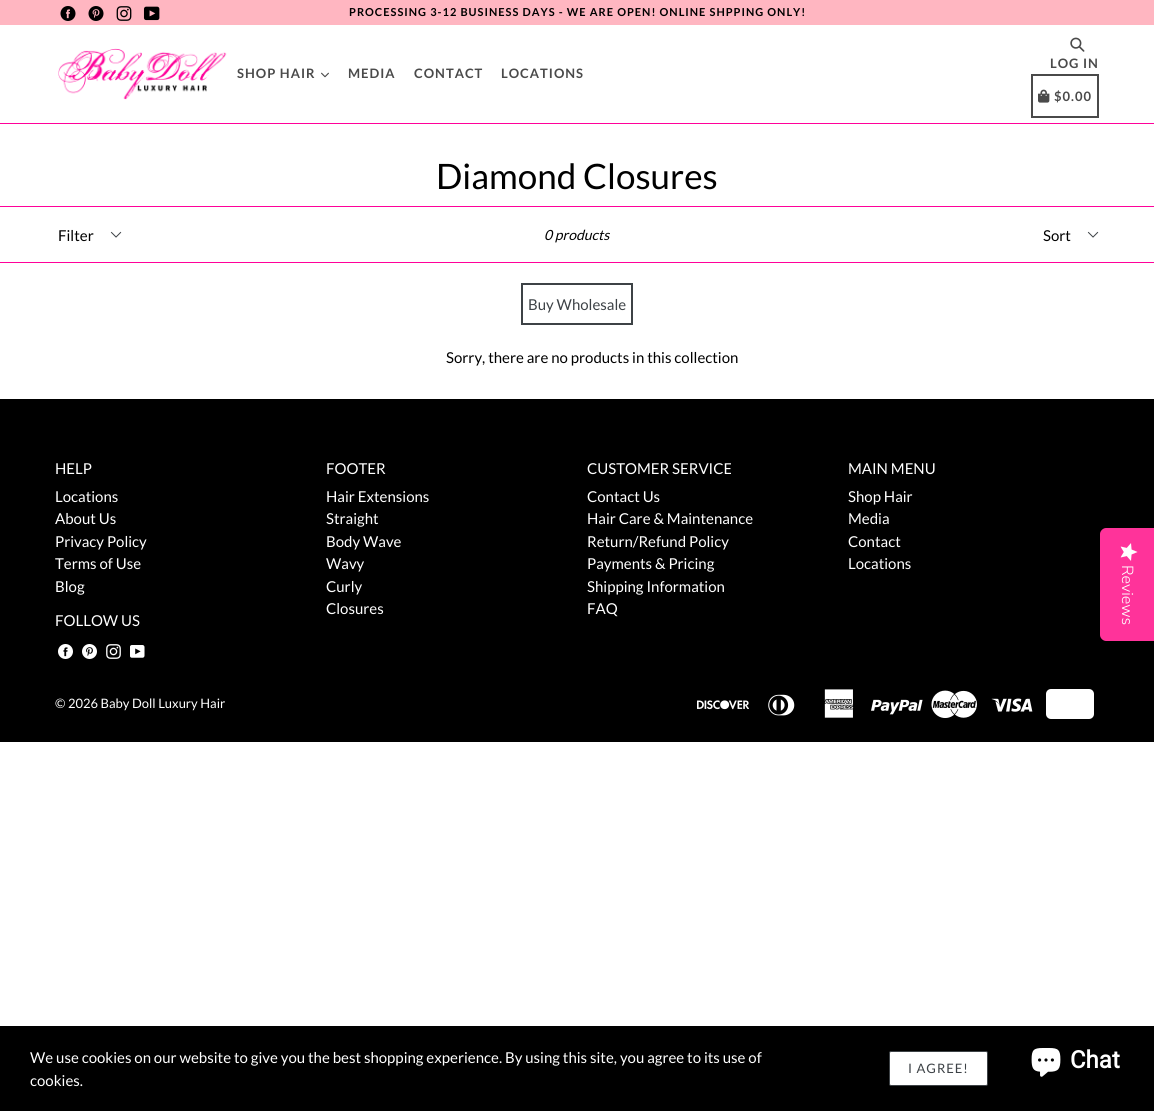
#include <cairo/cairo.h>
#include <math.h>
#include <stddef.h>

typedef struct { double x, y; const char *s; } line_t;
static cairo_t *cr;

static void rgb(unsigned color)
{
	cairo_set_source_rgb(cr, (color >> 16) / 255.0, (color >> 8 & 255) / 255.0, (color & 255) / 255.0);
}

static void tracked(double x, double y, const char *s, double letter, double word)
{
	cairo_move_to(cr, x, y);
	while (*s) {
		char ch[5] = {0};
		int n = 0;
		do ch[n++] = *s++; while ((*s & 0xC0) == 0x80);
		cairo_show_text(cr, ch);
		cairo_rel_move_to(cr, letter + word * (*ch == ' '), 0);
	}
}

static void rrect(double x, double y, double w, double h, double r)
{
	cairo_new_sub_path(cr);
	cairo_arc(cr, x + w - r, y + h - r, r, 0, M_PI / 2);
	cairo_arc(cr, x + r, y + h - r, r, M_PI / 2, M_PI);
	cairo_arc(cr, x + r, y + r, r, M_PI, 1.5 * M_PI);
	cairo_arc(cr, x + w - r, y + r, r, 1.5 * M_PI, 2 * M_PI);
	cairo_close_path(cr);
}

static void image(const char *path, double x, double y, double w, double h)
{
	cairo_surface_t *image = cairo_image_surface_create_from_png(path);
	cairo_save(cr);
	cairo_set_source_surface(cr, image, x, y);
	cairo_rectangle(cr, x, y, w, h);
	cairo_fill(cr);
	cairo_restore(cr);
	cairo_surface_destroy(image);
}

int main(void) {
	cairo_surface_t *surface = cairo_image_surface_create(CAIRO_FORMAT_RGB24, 1154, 1111);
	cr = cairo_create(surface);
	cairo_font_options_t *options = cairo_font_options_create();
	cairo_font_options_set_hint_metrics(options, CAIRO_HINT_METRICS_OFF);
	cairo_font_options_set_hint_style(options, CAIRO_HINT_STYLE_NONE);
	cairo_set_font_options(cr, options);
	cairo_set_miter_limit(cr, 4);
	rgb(0xffffff);
	cairo_paint(cr);
	rgb(0xffb6c1);
	cairo_rectangle(cr, 0, 0, 1154, 25);
	cairo_fill(cr);
	image("img/1.png", 60, 6, 16, 15);
	image("img/2.png", 88, 6, 16, 15);
	image("img/3.png", 116, 6, 16, 15);
	image("img/4.png", 143, 6, 17, 15);
	rgb(0xff019a);
	cairo_rectangle(cr, 0, 123, 1154, 1);
	cairo_fill(cr);
	image("img/5.png", 58, 48, 169, 52);
	image("img/6.png", 321, 72, 8, 6);
	image("img/7.png", 1070, 37, 15, 15);
	cairo_rectangle(cr, 1032, 75, 66, 42);
	rgb(0x4a4a4a);
	cairo_stroke(cr);
	image("img/8.png", 1038, 89, 12, 14);
	rgb(0xff019a);
	cairo_rectangle(cr, 0, 206, 1154, 1);
	cairo_fill(cr);
	cairo_rectangle(cr, 0, 262, 1154, 1);
	cairo_fill(cr);
	image("img/9.png", 110, 231, 12, 7);
	image("img/9.png", 1087, 231, 12, 7);
	cairo_rectangle(cr, 522, 284, 110, 40);
	rgb(0x3d4246);
	cairo_stroke(cr);
	rgb(0x000000);
	cairo_rectangle(cr, 0, 399, 1154, 343);
	cairo_fill(cr);
	image("img/10.png", 58, 644, 15, 15);
	image("img/11.png", 82, 644, 15, 15);
	image("img/12.png", 106, 644, 15, 15);
	image("img/13.png", 130, 645, 15, 13);
	image("img/14.png", 697, 700, 52, 10);
	image("img/15.png", 768, 694, 27, 22);
	image("img/16.png", 824, 689, 30, 29);
	image("img/17.png", 871, 699, 52, 16);
	image("img/18.png", 931, 690, 46, 28);
	image("img/19.png", 991, 698, 42, 14);
	image("img/20.png", 1046, 689, 48, 30);
	cairo_rectangle(cr, 0, 1026, 1154, 85);
	cairo_fill(cr);
	rgb(0xffffff);
	rrect(889.5, 1051.5, 98, 34, 1.5);
	cairo_fill_preserve(cr);
	rgb(0x3d4246);
	cairo_set_line_width(cr, 1);
	cairo_stroke(cr);
	rgb(0xff339a);
	cairo_new_path(cr);
	cairo_move_to(cr, 1154, 528);
	cairo_line_to(cr, 1154, 641);
	cairo_line_to(cr, 1106, 641);
	cairo_curve_to(cr, 1103, 641, 1100, 638, 1100, 635);
	cairo_line_to(cr, 1100, 534);
	cairo_curve_to(cr, 1100, 531, 1103, 528, 1106, 528);
	cairo_close_path(cr);
	cairo_fill(cr);
	image("img/21.png", 1120, 543, 18, 18);
	image("img/22.png", 1031, 1048, 30, 29);
	cairo_select_font_face(cr, "Lato", CAIRO_FONT_SLANT_NORMAL, CAIRO_FONT_WEIGHT_BOLD);
	cairo_set_font_size(cr, 11);
	rgb(0x000000);
	tracked(349, 16, "PROCESSING 3-12 BUSINESS DAYS - WE ARE OPEN! ONLINE SHPPING ONLY!", 1, 0);
	cairo_set_font_size(cr, 13);
	rgb(0x4a4a4a);
	{
		static const line_t items[] = {
			{237, 78, "SHOP HAIR"},
			{348, 78, "MEDIA"},
			{414, 78, "CONTACT"},
			{501, 78, "LOCATIONS"},
			{1050, 68, "LOG IN"},
			{1054, 101, "$0.00"},
		};
		for (size_t i = 0; i < sizeof items / sizeof *items; i++) {
			tracked(items[i].x, items[i].y, items[i].s, 1, 0);
		}
	}
	cairo_select_font_face(cr, "Lato", CAIRO_FONT_SLANT_NORMAL, CAIRO_FONT_WEIGHT_NORMAL);
	cairo_set_font_size(cr, 35);
	rgb(0x000000);
	cairo_move_to(cr, 436, 189);
	cairo_show_text(cr, "Diamond Closures");
	cairo_set_font_size(cr, 15);
	cairo_move_to(cr, 58, 241);
	cairo_show_text(cr, "Filter");
	cairo_select_font_face(cr, "Lato", CAIRO_FONT_SLANT_ITALIC, CAIRO_FONT_WEIGHT_NORMAL);
	cairo_set_font_size(cr, 14);
	cairo_move_to(cr, 544, 240);
	cairo_show_text(cr, "0 products");
	cairo_select_font_face(cr, "Lato", CAIRO_FONT_SLANT_NORMAL, CAIRO_FONT_WEIGHT_NORMAL);
	cairo_set_font_size(cr, 15);
	cairo_move_to(cr, 1043, 241);
	cairo_show_text(cr, "Sort");
	rgb(0x3d4246);
	cairo_move_to(cr, 528, 310);
	cairo_show_text(cr, "Buy Wholesale");
	rgb(0x000000);
	cairo_move_to(cr, 446, 363);
	cairo_show_text(cr, "Sorry, there are no products in this collection");
	rgb(0xffffff);
	{
		static const line_t items[] = {
			{55, 474, "HELP"},
			{55, 502, "Locations"},
			{55, 524, "About Us"},
			{55, 547, "Privacy Policy"},
			{55, 569, "Terms of Use"},
			{55, 592, "Blog"},
			{55, 626, "FOLLOW US"},
			{326, 474, "FOOTER"},
			{326, 502, "Hair Extensions"},
			{326, 524, "Straight"},
			{326, 547, "Body Wave"},
			{326, 569, "Wavy"},
			{326, 592, "Curly"},
			{326, 614, "Closures"},
			{587, 474, "CUSTOMER SERVICE"},
			{587, 502, "Contact Us"},
			{587, 524, "Hair Care & Maintenance"},
			{587, 547, "Return/Refund Policy"},
			{587, 569, "Payments & Pricing"},
			{587, 592, "Shipping Information"},
			{587, 614, "FAQ"},
			{848, 474, "MAIN MENU"},
			{848, 502, "Shop Hair"},
			{848, 524, "Media"},
			{848, 547, "Contact"},
			{848, 569, "Locations"},
		};
		for (size_t i = 0; i < sizeof items / sizeof *items; i++) {
			cairo_move_to(cr, items[i].x, items[i].y);
			cairo_show_text(cr, items[i].s);
		}
	}
	cairo_set_font_size(cr, 13);
	cairo_move_to(cr, 55, 708);
	cairo_show_text(cr, "© 2026 Baby Doll Luxury Hair");
	cairo_set_font_size(cr, 15);
	cairo_move_to(cr, 30, 1063);
	cairo_show_text(cr, "We use cookies on our website to give you the best shopping experience. By using this site, you agree to its use of");
	cairo_move_to(cr, 30, 1086);
	cairo_show_text(cr, "cookies.");
	cairo_set_font_size(cr, 13);
	rgb(0x3d4246);
	tracked(908, 1073, "I AGREE!", 1, 0);
	cairo_select_font_face(cr, "Nunito Sans Light", CAIRO_FONT_SLANT_NORMAL, CAIRO_FONT_WEIGHT_NORMAL);
	cairo_set_font_size(cr, 16);
	rgb(0xffffff);
	cairo_save(cr);
	cairo_translate(cr, 1122, 565);
	cairo_rotate(cr, 90 * M_PI / 180);
	cairo_move_to(cr, 0, 0);
	cairo_show_text(cr, "Reviews");
	cairo_restore(cr);
	cairo_select_font_face(cr, "Roboto", CAIRO_FONT_SLANT_NORMAL, CAIRO_FONT_WEIGHT_BOLD);
	cairo_set_font_size(cr, 24);
	cairo_move_to(cr, 1070, 1068);
	cairo_show_text(cr, "Chat");
	cairo_surface_write_to_png(surface, "page.png");
	cairo_font_options_destroy(options);
	cairo_destroy(cr);
	cairo_surface_destroy(surface);
	return 0;
}
